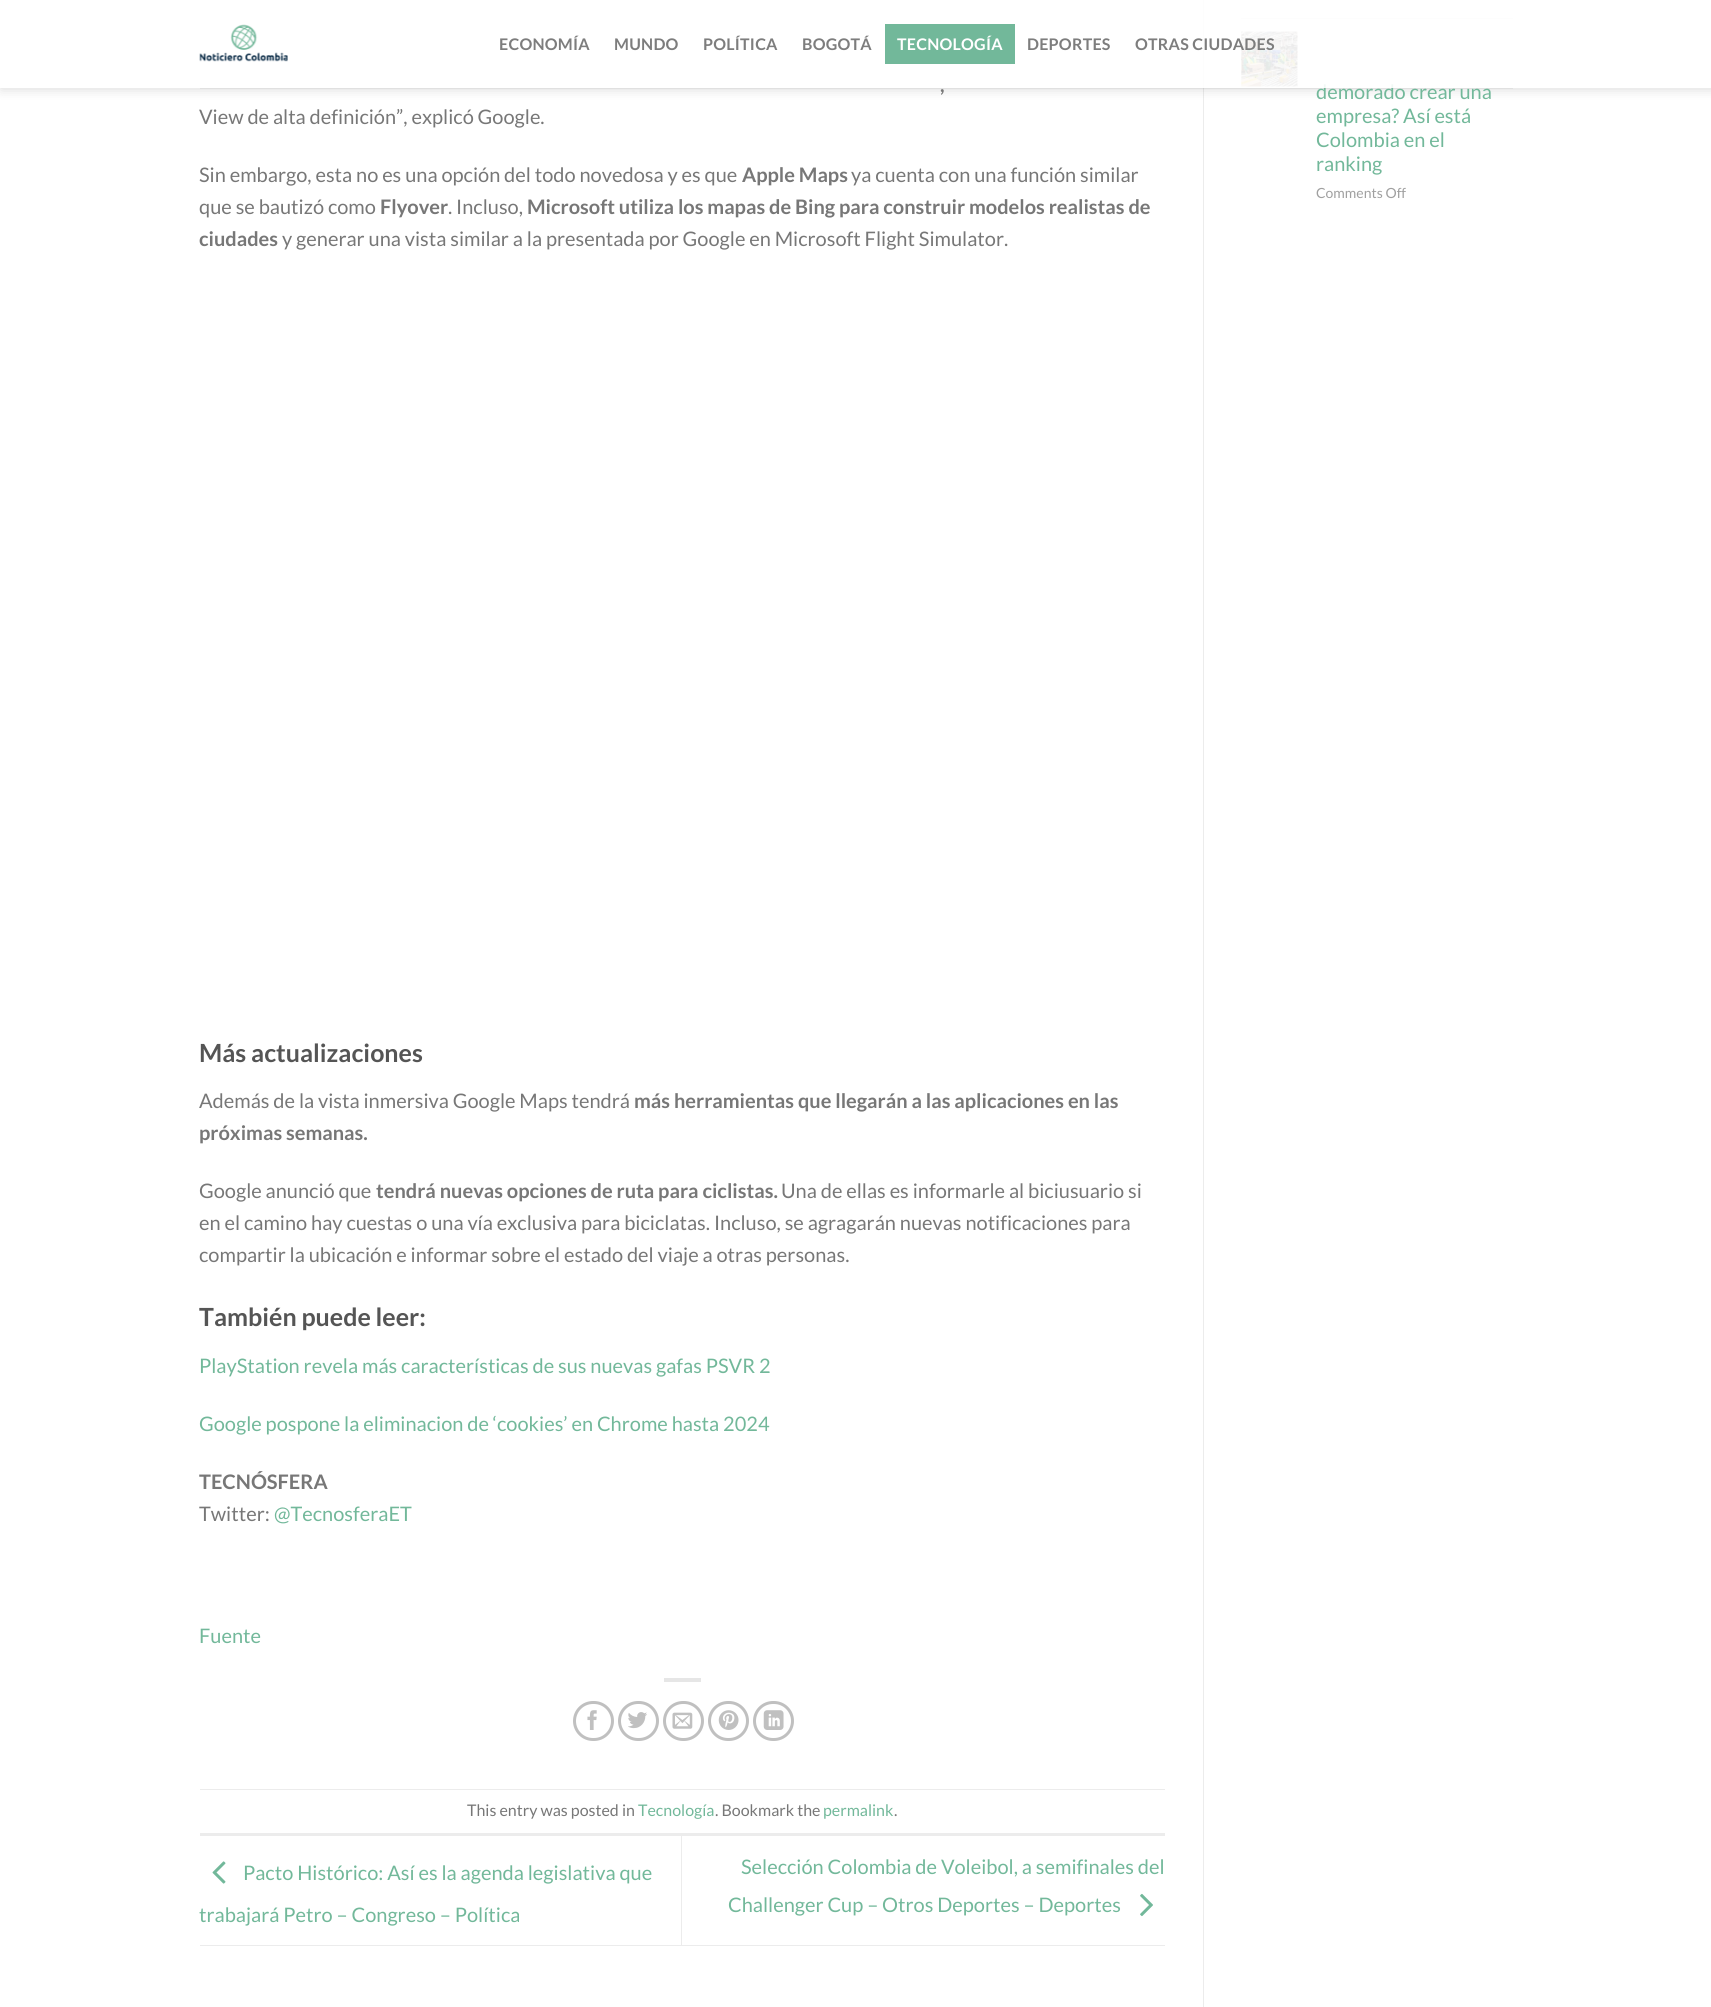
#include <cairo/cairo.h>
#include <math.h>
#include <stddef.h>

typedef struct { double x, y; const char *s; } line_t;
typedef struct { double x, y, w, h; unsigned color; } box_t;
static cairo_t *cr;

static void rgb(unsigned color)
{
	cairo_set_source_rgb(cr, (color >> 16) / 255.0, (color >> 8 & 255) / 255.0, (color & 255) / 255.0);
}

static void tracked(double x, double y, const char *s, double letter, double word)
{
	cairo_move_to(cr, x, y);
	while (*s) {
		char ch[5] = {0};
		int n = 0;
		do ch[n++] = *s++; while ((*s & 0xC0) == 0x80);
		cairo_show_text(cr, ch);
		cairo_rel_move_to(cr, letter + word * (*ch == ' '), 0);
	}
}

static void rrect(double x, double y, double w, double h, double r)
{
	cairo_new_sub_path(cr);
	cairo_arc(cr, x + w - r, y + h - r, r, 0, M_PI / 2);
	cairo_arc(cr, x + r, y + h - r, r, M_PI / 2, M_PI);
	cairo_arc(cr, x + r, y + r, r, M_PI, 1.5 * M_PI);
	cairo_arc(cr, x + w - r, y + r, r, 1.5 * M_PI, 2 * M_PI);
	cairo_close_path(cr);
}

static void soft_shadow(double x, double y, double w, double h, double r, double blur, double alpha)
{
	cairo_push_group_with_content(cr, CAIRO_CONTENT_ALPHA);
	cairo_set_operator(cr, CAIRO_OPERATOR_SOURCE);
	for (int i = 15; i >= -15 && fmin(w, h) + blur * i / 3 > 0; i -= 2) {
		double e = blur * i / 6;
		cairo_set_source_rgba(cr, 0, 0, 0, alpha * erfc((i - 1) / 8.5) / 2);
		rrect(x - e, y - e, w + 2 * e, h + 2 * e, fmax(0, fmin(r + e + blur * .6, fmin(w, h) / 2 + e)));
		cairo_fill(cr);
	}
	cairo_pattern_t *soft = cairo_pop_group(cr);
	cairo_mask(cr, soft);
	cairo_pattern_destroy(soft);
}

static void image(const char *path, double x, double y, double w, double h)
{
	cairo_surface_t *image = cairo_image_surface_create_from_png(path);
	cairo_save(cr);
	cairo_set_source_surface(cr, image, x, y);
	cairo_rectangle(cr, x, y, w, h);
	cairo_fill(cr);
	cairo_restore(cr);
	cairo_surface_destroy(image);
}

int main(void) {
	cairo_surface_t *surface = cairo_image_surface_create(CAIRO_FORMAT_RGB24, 1711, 2007);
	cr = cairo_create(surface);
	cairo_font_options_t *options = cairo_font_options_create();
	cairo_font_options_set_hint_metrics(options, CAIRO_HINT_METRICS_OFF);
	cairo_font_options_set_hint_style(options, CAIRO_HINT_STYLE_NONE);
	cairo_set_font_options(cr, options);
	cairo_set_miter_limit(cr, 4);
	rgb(0xffffff);
	cairo_paint(cr);
	rgb(0xececec);
	cairo_rectangle(cr, 1203, 0, 1, 2007);
	cairo_fill(cr);
	cairo_rectangle(cr, 1241, 18, 272, 1);
	cairo_fill(cr);
	image("img/9.png", 1241, 31, 57, 56);
	cairo_save(cr);
	cairo_set_fill_rule(cr, CAIRO_FILL_RULE_EVEN_ODD);
	cairo_new_path(cr);
	cairo_move_to(cr, 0, 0);
	cairo_line_to(cr, 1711, 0);
	cairo_line_to(cr, 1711, 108);
	cairo_line_to(cr, 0, 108);
	cairo_close_path(cr);
	cairo_move_to(cr, 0, 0);
	cairo_line_to(cr, 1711, 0);
	cairo_line_to(cr, 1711, 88);
	cairo_line_to(cr, 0, 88);
	cairo_close_path(cr);
	cairo_clip(cr);
	rgb(0x000000);
	soft_shadow(1, 1, 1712, 88, 0, 6, 0.15);
	cairo_restore(cr);
	cairo_set_source_rgba(cr, 0.467, 0.467, 0.467, 0.1);
	cairo_rectangle(cr, 200, 88, 1313, 1);
	cairo_fill(cr);
	rgb(0xe6e6e6);
	cairo_rectangle(cr, 664, 1678, 37, 4);
	cairo_fill(cr);
	rrect(574.5, 1702.5, 38, 37, 18.5);
	rgb(0xc0c0c0);
	cairo_set_line_width(cr, 3);
	cairo_stroke(cr);
	image("img/2.png", 587, 1710, 10, 20);
	rrect(619.5, 1702.5, 38, 37, 18.5);
	cairo_stroke(cr);
	image("img/3.png", 628, 1712, 19, 17);
	rrect(664.5, 1702.5, 38, 37, 18.5);
	cairo_stroke(cr);
	image("img/4.png", 672, 1712, 21, 17);
	rrect(709.5, 1702.5, 38, 37, 18.5);
	cairo_stroke(cr);
	image("img/5.png", 718, 1710, 21, 20);
	rrect(754.5, 1702.5, 38, 37, 18.5);
	cairo_stroke(cr);
	image("img/6.png", 763, 1710, 21, 20);
	{
		static const box_t items[] = {
			{200, 1789, 965, 1, 0xececec},
			{200, 1833, 965, 3, 0xececec},
			{200, 1945, 965, 1, 0xececec},
		};
		for (size_t i = 0; i < sizeof items / sizeof *items; i++) {
			rgb(items[i].color);
			cairo_rectangle(cr, items[i].x, items[i].y, items[i].w, items[i].h);
			cairo_fill(cr);
		}
	}
	image("img/7.png", 212, 1861, 14, 23);
	cairo_rectangle(cr, 681, 1836, 1, 109);
	cairo_fill(cr);
	image("img/8.png", 1140, 1893, 13, 24);
	cairo_select_font_face(cr, "Lato", CAIRO_FONT_SLANT_NORMAL, CAIRO_FONT_WEIGHT_BOLD);
	cairo_set_font_size(cr, 20);
	rgb(0x777777);
	cairo_move_to(cr, 940, 92);
	cairo_show_text(cr, ",");
	cairo_select_font_face(cr, "Lato", CAIRO_FONT_SLANT_NORMAL, CAIRO_FONT_WEIGHT_NORMAL);
	cairo_move_to(cr, 199, 124);
	cairo_show_text(cr, "View de alta definición”, explicó Google.");
	cairo_move_to(cr, 199, 182);
	cairo_show_text(cr, "Sin embargo, esta no es una opción del todo novedosa y es que");
	cairo_select_font_face(cr, "Lato", CAIRO_FONT_SLANT_NORMAL, CAIRO_FONT_WEIGHT_BOLD);
	cairo_move_to(cr, 742, 182);
	cairo_show_text(cr, "Apple Maps");
	cairo_select_font_face(cr, "Lato", CAIRO_FONT_SLANT_NORMAL, CAIRO_FONT_WEIGHT_NORMAL);
	cairo_move_to(cr, 851, 182);
	cairo_show_text(cr, "ya cuenta con una función similar");
	cairo_move_to(cr, 199, 214);
	cairo_show_text(cr, "que se bautizó como");
	cairo_select_font_face(cr, "Lato", CAIRO_FONT_SLANT_NORMAL, CAIRO_FONT_WEIGHT_BOLD);
	cairo_move_to(cr, 380, 214);
	cairo_show_text(cr, "Flyover");
	cairo_select_font_face(cr, "Lato", CAIRO_FONT_SLANT_NORMAL, CAIRO_FONT_WEIGHT_NORMAL);
	cairo_move_to(cr, 448, 214);
	cairo_show_text(cr, ". Incluso,");
	cairo_select_font_face(cr, "Lato", CAIRO_FONT_SLANT_NORMAL, CAIRO_FONT_WEIGHT_BOLD);
	cairo_move_to(cr, 527, 214);
	cairo_show_text(cr, "Microsoft utiliza los mapas de Bing para construir modelos realistas de");
	cairo_move_to(cr, 199, 246);
	cairo_show_text(cr, "ciudades");
	cairo_select_font_face(cr, "Lato", CAIRO_FONT_SLANT_NORMAL, CAIRO_FONT_WEIGHT_NORMAL);
	cairo_move_to(cr, 282, 246);
	cairo_show_text(cr, "y generar una vista similar a la presentada por Google en Microsoft Flight Simulator.");
	cairo_select_font_face(cr, "Lato", CAIRO_FONT_SLANT_NORMAL, CAIRO_FONT_WEIGHT_BOLD);
	cairo_set_font_size(cr, 25);
	rgb(0x555555);
	cairo_move_to(cr, 199, 1062);
	cairo_show_text(cr, "Más actualizaciones");
	cairo_select_font_face(cr, "Lato", CAIRO_FONT_SLANT_NORMAL, CAIRO_FONT_WEIGHT_NORMAL);
	cairo_set_font_size(cr, 20);
	rgb(0x777777);
	cairo_move_to(cr, 199, 1108);
	cairo_show_text(cr, "Además de la vista inmersiva Google Maps tendrá");
	cairo_select_font_face(cr, "Lato", CAIRO_FONT_SLANT_NORMAL, CAIRO_FONT_WEIGHT_BOLD);
	cairo_move_to(cr, 634, 1108);
	cairo_show_text(cr, "más herramientas que llegarán a las aplicaciones en las");
	cairo_move_to(cr, 199, 1140);
	cairo_show_text(cr, "próximas semanas.");
	cairo_select_font_face(cr, "Lato", CAIRO_FONT_SLANT_NORMAL, CAIRO_FONT_WEIGHT_NORMAL);
	cairo_move_to(cr, 199, 1198);
	cairo_show_text(cr, "Google anunció que");
	cairo_select_font_face(cr, "Lato", CAIRO_FONT_SLANT_NORMAL, CAIRO_FONT_WEIGHT_BOLD);
	cairo_move_to(cr, 376, 1198);
	cairo_show_text(cr, "tendrá nuevas opciones de ruta para ciclistas.");
	cairo_select_font_face(cr, "Lato", CAIRO_FONT_SLANT_NORMAL, CAIRO_FONT_WEIGHT_NORMAL);
	{
		static const line_t items[] = {
			{781, 1198, "Una de ellas es informarle al biciusuario si"},
			{199, 1230, "en el camino hay cuestas o una vía exclusiva para biciclatas. Incluso, se agragarán nuevas notificaciones para"},
			{199, 1262, "compartir la ubicación e informar sobre el estado del viaje a otras personas."},
		};
		for (size_t i = 0; i < sizeof items / sizeof *items; i++) {
			cairo_move_to(cr, items[i].x, items[i].y);
			cairo_show_text(cr, items[i].s);
		}
	}
	cairo_select_font_face(cr, "Lato", CAIRO_FONT_SLANT_NORMAL, CAIRO_FONT_WEIGHT_BOLD);
	cairo_set_font_size(cr, 25);
	rgb(0x555555);
	cairo_move_to(cr, 199, 1326);
	cairo_show_text(cr, "También puede leer:");
	cairo_select_font_face(cr, "Lato", CAIRO_FONT_SLANT_NORMAL, CAIRO_FONT_WEIGHT_NORMAL);
	cairo_set_font_size(cr, 20);
	rgb(0x72b89a);
	cairo_move_to(cr, 199, 1373);
	cairo_show_text(cr, "PlayStation revela más características de sus nuevas gafas PSVR 2");
	cairo_move_to(cr, 199, 1431);
	cairo_show_text(cr, "Google pospone la eliminacion de ‘cookies’ en Chrome hasta 2024");
	cairo_select_font_face(cr, "Lato", CAIRO_FONT_SLANT_NORMAL, CAIRO_FONT_WEIGHT_BOLD);
	rgb(0x777777);
	cairo_move_to(cr, 199, 1489);
	cairo_show_text(cr, "TECNÓSFERA");
	cairo_select_font_face(cr, "Lato", CAIRO_FONT_SLANT_NORMAL, CAIRO_FONT_WEIGHT_NORMAL);
	cairo_move_to(cr, 199, 1521);
	cairo_show_text(cr, "Twitter:");
	rgb(0x72b89a);
	cairo_move_to(cr, 274, 1521);
	cairo_show_text(cr, "@TecnosferaET");
	cairo_move_to(cr, 199, 1643);
	cairo_show_text(cr, "Fuente");
	cairo_set_font_size(cr, 16);
	rgb(0x777777);
	cairo_move_to(cr, 467, 1816);
	cairo_show_text(cr, "This entry was posted in");
	rgb(0x72b89a);
	cairo_move_to(cr, 638, 1816);
	cairo_show_text(cr, "Tecnología");
	rgb(0x777777);
	cairo_move_to(cr, 715, 1816);
	cairo_show_text(cr, ". Bookmark the");
	rgb(0x72b89a);
	cairo_move_to(cr, 823, 1816);
	cairo_show_text(cr, "permalink");
	rgb(0x777777);
	cairo_move_to(cr, 894, 1816);
	cairo_show_text(cr, ".");
	cairo_set_font_size(cr, 20);
	rgb(0x72b89a);
	{
		static const line_t items[] = {
			{243, 1880, "Pacto Histórico: Así es la agenda legislativa que"},
			{199, 1922, "trabajará Petro – Congreso – Política"},
			{741, 1874, "Selección Colombia de Voleibol, a semifinales del"},
			{728, 1912, "Challenger Cup – Otros Deportes – Deportes"},
			{1316, 99, "demorado crear una"},
		};
		for (size_t i = 0; i < sizeof items / sizeof *items; i++) {
			cairo_move_to(cr, items[i].x, items[i].y);
			cairo_show_text(cr, items[i].s);
		}
	}
	cairo_set_source_rgba(cr, 1, 1, 1, 0.9);
	cairo_rectangle(cr, 0, 0, 1711, 88);
	cairo_fill(cr);
	cairo_select_font_face(cr, "Lato", CAIRO_FONT_SLANT_NORMAL, CAIRO_FONT_WEIGHT_BOLD);
	cairo_set_font_size(cr, 16);
	rgb(0x7d7d7d);
	tracked(1135, 50, "OTRAS CIUDADES", 0.25, 0);
	tracked(1027, 50, "DEPORTES", 0.25, 0);
	rgb(0x72b89a);
	cairo_rectangle(cr, 885, 24, 130, 40);
	cairo_fill(cr);
	rgb(0xffffff);
	tracked(897, 50, "TECNOLOGÍA", 0.25, 0);
	rgb(0x7d7d7d);
	{
		static const line_t items[] = {
			{802, 50, "BOGOTÁ"},
			{703, 50, "POLÍTICA"},
			{614, 50, "MUNDO"},
			{499, 50, "ECONOMÍA"},
		};
		for (size_t i = 0; i < sizeof items / sizeof *items; i++) {
			tracked(items[i].x, items[i].y, items[i].s, 0.25, 0);
		}
	}
	image("img/1.png", 199, 13, 89, 75);
	cairo_select_font_face(cr, "Lato", CAIRO_FONT_SLANT_NORMAL, CAIRO_FONT_WEIGHT_NORMAL);
	cairo_set_font_size(cr, 20);
	rgb(0x72b89a);
	{
		static const line_t items[] = {
			{1316, 123, "empresa? Así está"},
			{1316, 147, "Colombia en el"},
			{1316, 171, "ranking"},
		};
		for (size_t i = 0; i < sizeof items / sizeof *items; i++) {
			cairo_move_to(cr, items[i].x, items[i].y);
			cairo_show_text(cr, items[i].s);
		}
	}
	cairo_set_font_size(cr, 14);
	rgb(0xa0a0a0);
	cairo_move_to(cr, 1316, 198);
	cairo_show_text(cr, "Comments Off");
	cairo_surface_write_to_png(surface, "page.png");
	cairo_font_options_destroy(options);
	cairo_destroy(cr);
	cairo_surface_destroy(surface);
	return 0;
}
